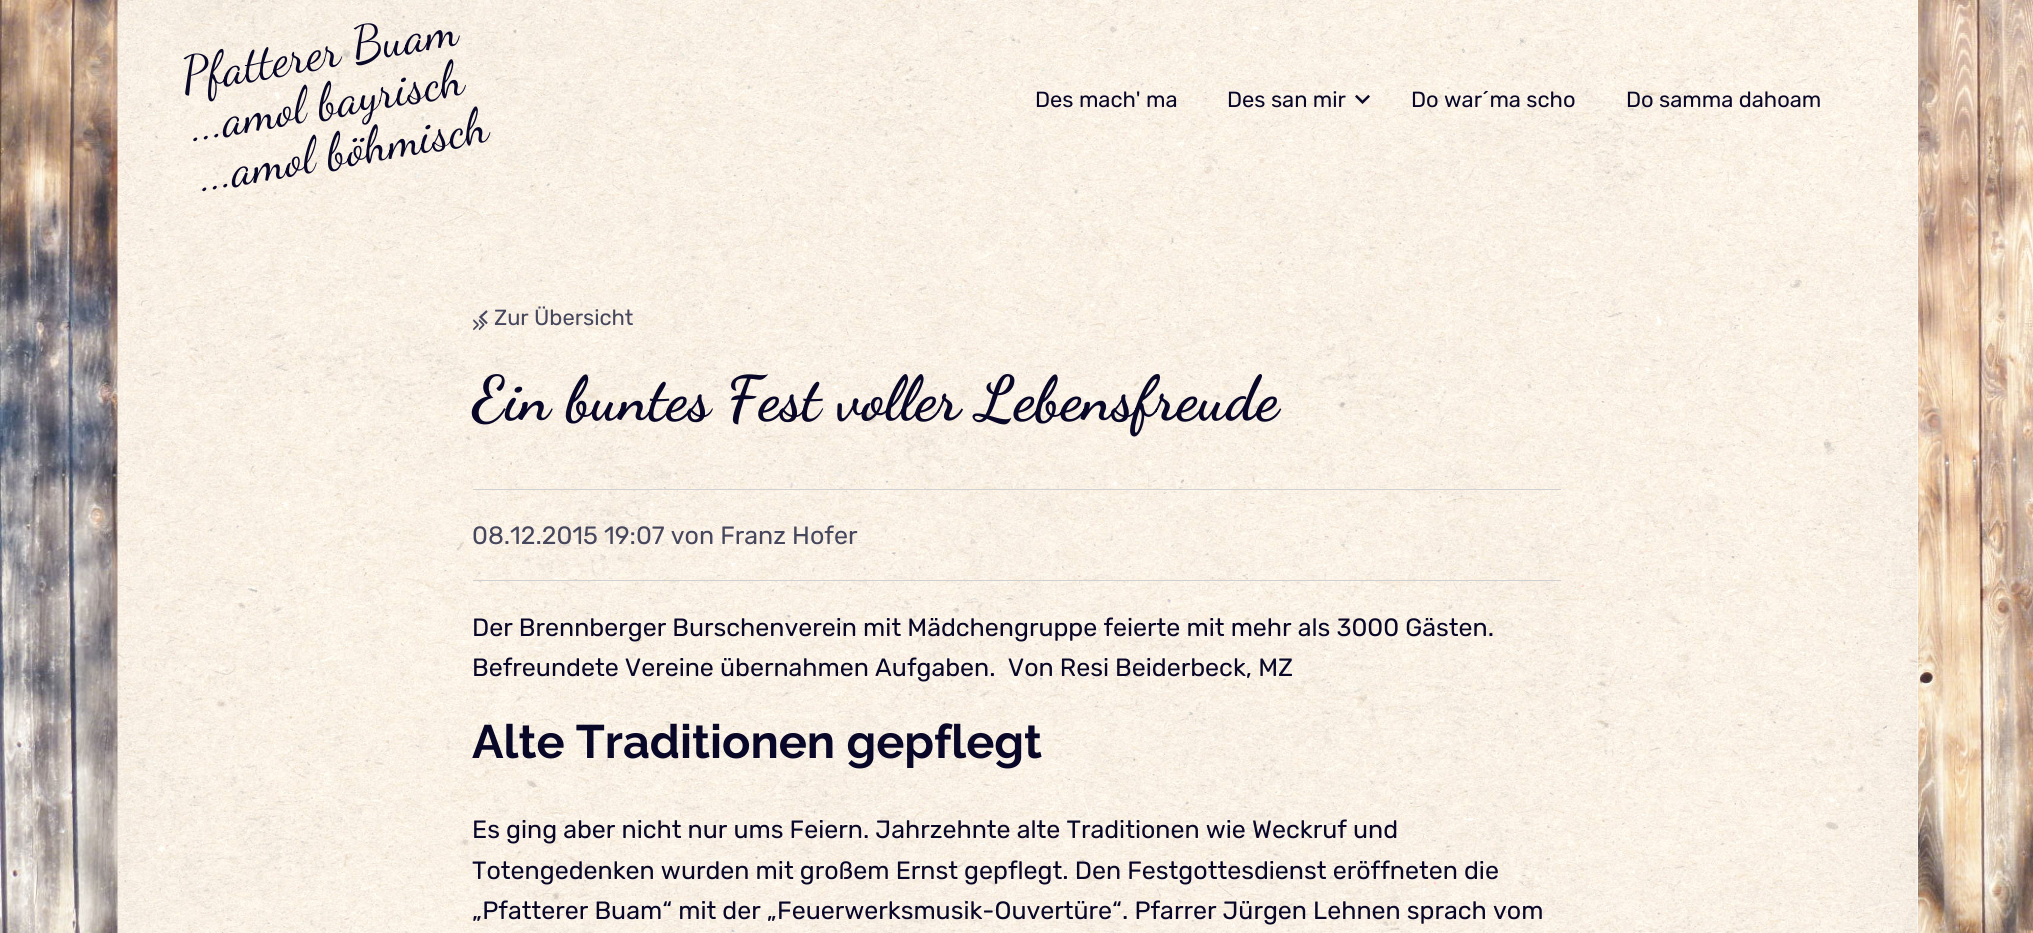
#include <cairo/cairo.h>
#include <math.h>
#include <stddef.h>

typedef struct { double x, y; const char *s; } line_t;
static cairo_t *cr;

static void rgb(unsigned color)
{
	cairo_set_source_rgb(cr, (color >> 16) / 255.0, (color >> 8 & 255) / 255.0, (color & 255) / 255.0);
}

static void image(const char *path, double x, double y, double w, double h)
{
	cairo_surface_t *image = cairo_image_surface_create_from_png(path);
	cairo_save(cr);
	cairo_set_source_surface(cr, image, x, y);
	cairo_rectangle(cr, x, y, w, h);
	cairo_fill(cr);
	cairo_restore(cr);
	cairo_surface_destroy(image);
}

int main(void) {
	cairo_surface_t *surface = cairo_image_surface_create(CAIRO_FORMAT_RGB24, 2033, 933);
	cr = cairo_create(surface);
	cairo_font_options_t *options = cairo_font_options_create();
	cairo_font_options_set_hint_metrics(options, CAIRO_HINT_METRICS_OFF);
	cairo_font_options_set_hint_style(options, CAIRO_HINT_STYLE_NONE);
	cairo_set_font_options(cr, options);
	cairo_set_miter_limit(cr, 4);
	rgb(0xffffff);
	cairo_paint(cr);
	image("img/1.png", 0, 0, 2033, 933);
	rgb(0xffffff);
	cairo_rectangle(cr, 1917, 0, 1, 933);
	cairo_fill(cr);
	image("img/2.png", 117, 0, 1801, 933);
	image("img/3.png", 1355, 94, 15, 10);
	cairo_new_path(cr);
	cairo_move_to(cr, 487, 311);
	cairo_line_to(cr, 480.5, 317);
	cairo_line_to(cr, 487, 323.5);
	rgb(0x46465d);
	cairo_set_line_width(cr, 2.2);
	cairo_stroke(cr);
	rgb(0xd0d0d0);
	cairo_rectangle(cr, 473, 489, 1088, 1);
	cairo_fill(cr);
	cairo_rectangle(cr, 473, 580, 1088, 1);
	cairo_fill(cr);
	cairo_select_font_face(cr, "Dancing Script", CAIRO_FONT_SLANT_NORMAL, CAIRO_FONT_WEIGHT_NORMAL);
	cairo_set_font_size(cr, 50);
	rgb(0x090727);
	cairo_save(cr);
	cairo_translate(cr, 184, 92);
	cairo_rotate(cr, -10 * M_PI / 180);
	cairo_move_to(cr, 0, 0);
	cairo_show_text(cr, "Pfatterer Buam");
	cairo_restore(cr);
	cairo_save(cr);
	cairo_translate(cr, 193, 141);
	cairo_rotate(cr, -10 * M_PI / 180);
	cairo_move_to(cr, 0, 0);
	cairo_show_text(cr, "...amol bayrisch");
	cairo_restore(cr);
	cairo_save(cr);
	cairo_translate(cr, 202, 191);
	cairo_rotate(cr, -10 * M_PI / 180);
	cairo_move_to(cr, 0, 0);
	cairo_show_text(cr, "...amol böhmisch");
	cairo_restore(cr);
	cairo_select_font_face(cr, "Rubik", CAIRO_FONT_SLANT_NORMAL, CAIRO_FONT_WEIGHT_NORMAL);
	cairo_set_font_size(cr, 21.9);
	{
		static const line_t items[] = {
			{1035, 107, "Des mach' ma"},
			{1227, 107, "Des san mir"},
			{1411, 107, "Do war´ma scho"},
			{1626, 107, "Do samma dahoam"},
		};
		for (size_t i = 0; i < sizeof items / sizeof *items; i++) {
			cairo_move_to(cr, items[i].x, items[i].y);
			cairo_show_text(cr, items[i].s);
		}
	}
	rgb(0x46465d);
	cairo_move_to(cr, 472, 332);
	cairo_show_text(cr, "»");
	cairo_move_to(cr, 494, 325);
	cairo_show_text(cr, "Zur Übersicht");
	cairo_select_font_face(cr, "Dancing Script", CAIRO_FONT_SLANT_NORMAL, CAIRO_FONT_WEIGHT_BOLD);
	cairo_set_font_size(cr, 62.5);
	rgb(0x090727);
	cairo_move_to(cr, 472, 419);
	cairo_show_text(cr, "Ein buntes Fest voller Lebensfreude");
	cairo_select_font_face(cr, "Rubik", CAIRO_FONT_SLANT_NORMAL, CAIRO_FONT_WEIGHT_NORMAL);
	cairo_set_font_size(cr, 25);
	rgb(0x46465d);
	cairo_move_to(cr, 472, 544);
	cairo_show_text(cr, "08.12.2015 19:07 von Franz Hofer");
	rgb(0x090727);
	cairo_move_to(cr, 472, 636);
	cairo_show_text(cr, "Der Brennberger Burschenverein mit Mädchengruppe feierte mit mehr als 3000 Gästen.");
	cairo_move_to(cr, 472, 676);
	cairo_show_text(cr, "Befreundete Vereine übernahmen Aufgaben.  Von Resi Beiderbeck, MZ");
	cairo_select_font_face(cr, "Raleway", CAIRO_FONT_SLANT_NORMAL, CAIRO_FONT_WEIGHT_BOLD);
	cairo_set_font_size(cr, 46.9);
	cairo_move_to(cr, 472, 758);
	cairo_show_text(cr, "Alte Traditionen gepflegt");
	cairo_select_font_face(cr, "Rubik", CAIRO_FONT_SLANT_NORMAL, CAIRO_FONT_WEIGHT_NORMAL);
	cairo_set_font_size(cr, 25);
	{
		static const line_t items[] = {
			{472, 838, "Es ging aber nicht nur ums Feiern. Jahrzehnte alte Traditionen wie Weckruf und"},
			{472, 879, "Totengedenken wurden mit großem Ernst gepflegt. Den Festgottesdienst eröffneten die"},
			{472, 919, "„Pfatterer Buam“ mit der „Feuerwerksmusik-Ouvertüre“. Pfarrer Jürgen Lehnen sprach vom"},
		};
		for (size_t i = 0; i < sizeof items / sizeof *items; i++) {
			cairo_move_to(cr, items[i].x, items[i].y);
			cairo_show_text(cr, items[i].s);
		}
	}
	cairo_surface_write_to_png(surface, "page.png");
	cairo_font_options_destroy(options);
	cairo_destroy(cr);
	cairo_surface_destroy(surface);
	return 0;
}
